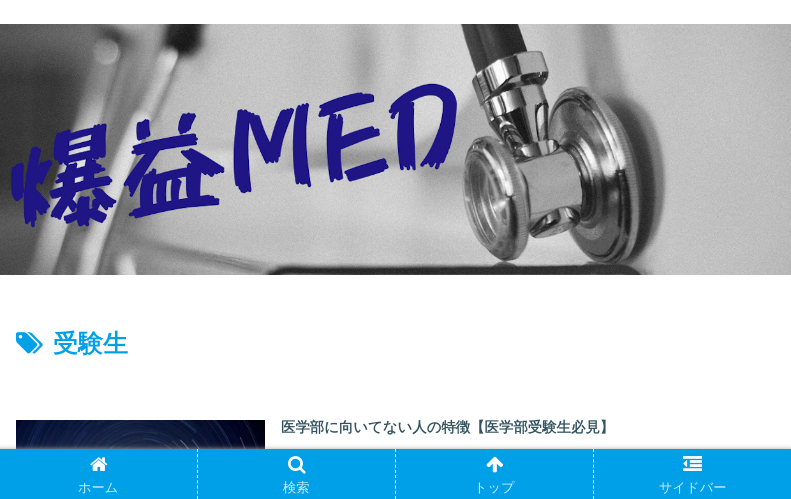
#include <cairo/cairo.h>
#include <math.h>
#include <stddef.h>

typedef struct { double x, y; const char *s; } line_t;
static cairo_t *cr;

static void rgb(unsigned color)
{
	cairo_set_source_rgb(cr, (color >> 16) / 255.0, (color >> 8 & 255) / 255.0, (color & 255) / 255.0);
}

static void rrect(double x, double y, double w, double h, double r)
{
	cairo_new_sub_path(cr);
	cairo_arc(cr, x + w - r, y + h - r, r, 0, M_PI / 2);
	cairo_arc(cr, x + r, y + h - r, r, M_PI / 2, M_PI);
	cairo_arc(cr, x + r, y + r, r, M_PI, 1.5 * M_PI);
	cairo_arc(cr, x + w - r, y + r, r, 1.5 * M_PI, 2 * M_PI);
	cairo_close_path(cr);
}

static void soft_shadow(double x, double y, double w, double h, double r, double blur, double alpha)
{
	cairo_push_group_with_content(cr, CAIRO_CONTENT_ALPHA);
	cairo_set_operator(cr, CAIRO_OPERATOR_SOURCE);
	for (int i = 15; i >= -15 && fmin(w, h) + blur * i / 3 > 0; i -= 2) {
		double e = blur * i / 6;
		cairo_set_source_rgba(cr, 0, 0, 0, alpha * erfc((i - 1) / 8.5) / 2);
		rrect(x - e, y - e, w + 2 * e, h + 2 * e, fmax(0, fmin(r + e + blur * .6, fmin(w, h) / 2 + e)));
		cairo_fill(cr);
	}
	cairo_pattern_t *soft = cairo_pop_group(cr);
	cairo_mask(cr, soft);
	cairo_pattern_destroy(soft);
}

static void image(const char *path, double x, double y, double w, double h)
{
	cairo_surface_t *image = cairo_image_surface_create_from_png(path);
	cairo_save(cr);
	cairo_set_source_surface(cr, image, x, y);
	cairo_rectangle(cr, x, y, w, h);
	cairo_fill(cr);
	cairo_restore(cr);
	cairo_surface_destroy(image);
}

int main(void) {
	cairo_surface_t *surface = cairo_image_surface_create(CAIRO_FORMAT_RGB24, 791, 499);
	cr = cairo_create(surface);
	cairo_font_options_t *options = cairo_font_options_create();
	cairo_font_options_set_hint_metrics(options, CAIRO_HINT_METRICS_OFF);
	cairo_font_options_set_hint_style(options, CAIRO_HINT_STYLE_NONE);
	cairo_set_font_options(cr, options);
	cairo_set_miter_limit(cr, 4);
	rgb(0xffffff);
	cairo_paint(cr);
	image("img/1.png", 0, 24, 791, 251);
	image("img/2.png", 16, 332, 27, 22);
	image("img/3.png", 16, 420, 249, 29);
	rgb(0xa9a9a9);
	soft_shadow(0, 449, 791, 50, 0, 2.5, 1);
	rgb(0x00a0e9);
	cairo_rectangle(cr, 0, 449, 791, 50);
	cairo_fill(cr);
	cairo_new_path(cr);
	cairo_move_to(cr, 197.5, 449);
	cairo_line_to(cr, 197.5, 499);
	rgb(0xffffff);
	cairo_set_line_width(cr, 1);
	cairo_set_dash(cr, (double[]){3, 2.22}, 2, 0);
	cairo_stroke(cr);
	image("img/4.png", 90, 457, 18, 14);
	cairo_new_path(cr);
	cairo_move_to(cr, 395.5, 449);
	cairo_line_to(cr, 395.5, 499);
	cairo_stroke(cr);
	image("img/5.png", 288, 456, 18, 18);
	cairo_new_path(cr);
	cairo_move_to(cr, 593.5, 449);
	cairo_line_to(cr, 593.5, 499);
	cairo_stroke(cr);
	image("img/6.png", 486, 456, 17, 17);
	image("img/7.png", 683, 456, 19, 15);
	cairo_select_font_face(cr, "WenQuanYi Zen Hei", CAIRO_FONT_SLANT_NORMAL, CAIRO_FONT_WEIGHT_BOLD);
	cairo_set_font_size(cr, 25);
	rgb(0x00a0e9);
	cairo_move_to(cr, 53, 352);
	cairo_show_text(cr, "受験生");
	cairo_set_font_size(cr, 14.4);
	rgb(0x335361);
	cairo_move_to(cr, 281, 432);
	cairo_show_text(cr, "医学部に向いてない人の特徴【医学部受験生必見】");
	cairo_select_font_face(cr, "WenQuanYi Zen Hei Medium", CAIRO_FONT_SLANT_NORMAL, CAIRO_FONT_WEIGHT_NORMAL);
	cairo_set_font_size(cr, 13.25);
	rgb(0xccecfb);
	{
		static const line_t items[] = {
			{78, 492, "ホーム"},
			{283, 492, "検索"},
			{474, 492, "トップ"},
			{659, 492, "サイドバー"},
		};
		for (size_t i = 0; i < sizeof items / sizeof *items; i++) {
			cairo_move_to(cr, items[i].x, items[i].y);
			cairo_show_text(cr, items[i].s);
		}
	}
	cairo_surface_write_to_png(surface, "page.png");
	cairo_font_options_destroy(options);
	cairo_destroy(cr);
	cairo_surface_destroy(surface);
	return 0;
}
